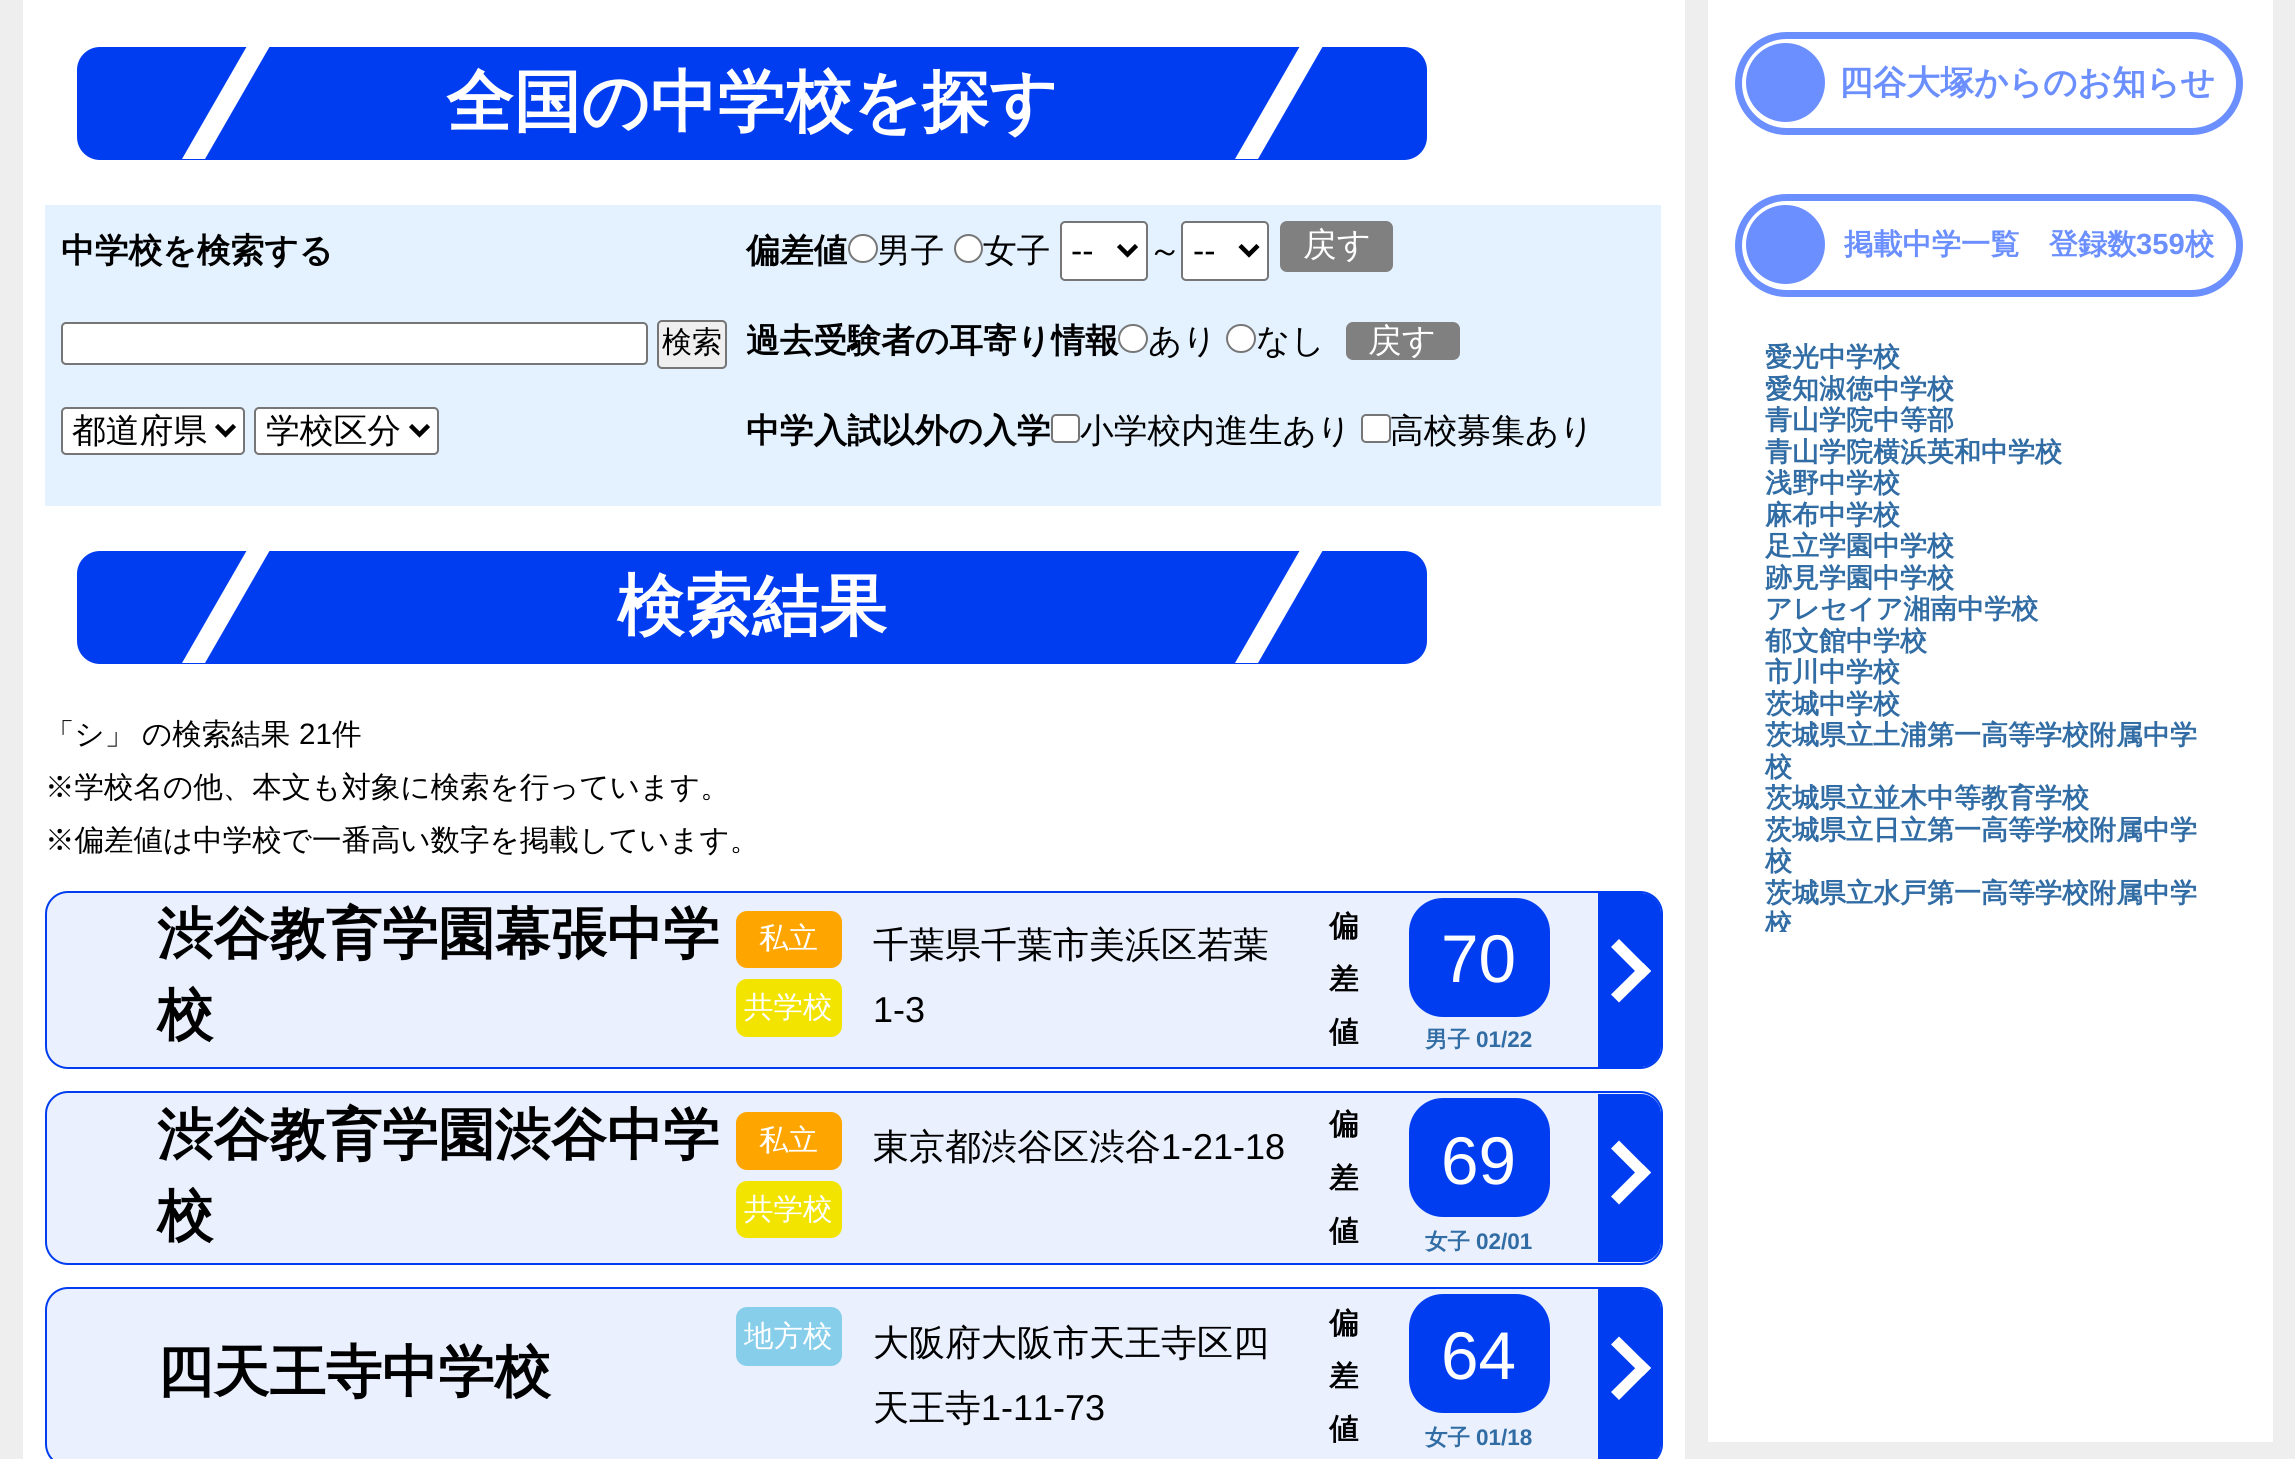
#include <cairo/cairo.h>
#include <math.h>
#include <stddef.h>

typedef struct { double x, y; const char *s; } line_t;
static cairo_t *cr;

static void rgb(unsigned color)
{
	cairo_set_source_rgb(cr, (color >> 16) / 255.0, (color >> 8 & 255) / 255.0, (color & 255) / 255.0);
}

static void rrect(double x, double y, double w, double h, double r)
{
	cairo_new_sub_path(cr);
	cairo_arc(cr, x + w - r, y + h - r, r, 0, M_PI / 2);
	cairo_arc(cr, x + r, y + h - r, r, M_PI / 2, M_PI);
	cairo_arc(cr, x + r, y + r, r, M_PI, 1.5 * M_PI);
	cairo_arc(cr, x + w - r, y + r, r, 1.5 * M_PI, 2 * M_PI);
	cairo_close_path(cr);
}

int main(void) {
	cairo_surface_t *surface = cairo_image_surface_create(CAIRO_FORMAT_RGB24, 2295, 1459);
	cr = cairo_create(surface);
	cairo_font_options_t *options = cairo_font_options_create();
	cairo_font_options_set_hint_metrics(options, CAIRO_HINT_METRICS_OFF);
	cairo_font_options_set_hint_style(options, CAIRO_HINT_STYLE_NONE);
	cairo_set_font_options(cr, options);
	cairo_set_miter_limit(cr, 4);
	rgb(0xeeeeee);
	cairo_paint(cr);
	rgb(0xffffff);
	cairo_rectangle(cr, 23, 0, 1662, 1459);
	cairo_fill(cr);
	rgb(0x003df0);
	rrect(77, 47, 1350, 113, 23);
	cairo_fill(cr);
	rgb(0xffffff);
	cairo_new_path(cr);
	cairo_move_to(cr, 247, 46);
	cairo_line_to(cr, 270, 46);
	cairo_line_to(cr, 205, 159);
	cairo_line_to(cr, 182, 159);
	cairo_close_path(cr);
	cairo_fill(cr);
	cairo_new_path(cr);
	cairo_move_to(cr, 1300, 46);
	cairo_line_to(cr, 1323, 46);
	cairo_line_to(cr, 1258, 159);
	cairo_line_to(cr, 1235, 159);
	cairo_close_path(cr);
	cairo_fill(cr);
	rgb(0xe4f1ff);
	cairo_rectangle(cr, 45, 205, 1616, 301);
	cairo_fill(cr);
	rgb(0xffffff);
	rrect(62, 323, 585, 41, 4);
	cairo_fill_preserve(cr);
	rgb(0x767676);
	cairo_stroke(cr);
	rgb(0xefefef);
	rrect(658, 321, 68, 47, 4);
	cairo_fill_preserve(cr);
	rgb(0x767676);
	cairo_stroke(cr);
	rgb(0xffffff);
	rrect(62, 408, 182, 46, 4);
	cairo_fill_preserve(cr);
	rgb(0x767676);
	cairo_stroke(cr);
	cairo_new_path(cr);
	cairo_move_to(cr, 216.5, 425.5);
	cairo_line_to(cr, 225.5, 434.5);
	cairo_line_to(cr, 234.5, 425.5);
	rgb(0x000000);
	cairo_set_line_width(cr, 4.5);
	cairo_stroke(cr);
	rgb(0xffffff);
	rrect(255, 408, 183, 46, 4);
	cairo_fill_preserve(cr);
	rgb(0x767676);
	cairo_set_line_width(cr, 2);
	cairo_stroke(cr);
	cairo_new_path(cr);
	cairo_move_to(cr, 410.5, 425.5);
	cairo_line_to(cr, 419.5, 434.5);
	cairo_line_to(cr, 428.5, 425.5);
	rgb(0x000000);
	cairo_set_line_width(cr, 4.5);
	cairo_stroke(cr);
	rgb(0xffffff);
	rrect(849, 235, 28, 27, 13.5);
	cairo_fill_preserve(cr);
	rgb(0x767676);
	cairo_set_line_width(cr, 2);
	cairo_stroke(cr);
	rgb(0xffffff);
	cairo_arc(cr, 968.5, 248.5, 13.5, 0, 2 * M_PI);
	cairo_fill_preserve(cr);
	rgb(0x767676);
	cairo_stroke(cr);
	rgb(0xffffff);
	rrect(1061, 222, 86, 58, 4);
	cairo_fill_preserve(cr);
	rgb(0x767676);
	cairo_stroke(cr);
	cairo_new_path(cr);
	cairo_move_to(cr, 1118.5, 245.5);
	cairo_line_to(cr, 1127.5, 254.5);
	cairo_line_to(cr, 1136.5, 245.5);
	rgb(0x000000);
	cairo_set_line_width(cr, 4.5);
	cairo_stroke(cr);
	rgb(0xffffff);
	rrect(1182, 222, 86, 58, 4);
	cairo_fill_preserve(cr);
	rgb(0x767676);
	cairo_set_line_width(cr, 2);
	cairo_stroke(cr);
	cairo_new_path(cr);
	cairo_move_to(cr, 1240, 245.5);
	cairo_line_to(cr, 1249, 254.5);
	cairo_line_to(cr, 1258, 245.5);
	rgb(0x000000);
	cairo_set_line_width(cr, 4.5);
	cairo_stroke(cr);
	rgb(0x808080);
	rrect(1280, 221, 113, 51, 7);
	cairo_fill(cr);
	rgb(0xffffff);
	rrect(1119, 325, 28, 27, 13.5);
	cairo_fill_preserve(cr);
	rgb(0x767676);
	cairo_set_line_width(cr, 2);
	cairo_stroke(cr);
	rgb(0xffffff);
	rrect(1227, 325, 28, 27, 13.5);
	cairo_fill_preserve(cr);
	rgb(0x767676);
	cairo_stroke(cr);
	rgb(0x808080);
	rrect(1346, 322, 114, 38, 7);
	cairo_fill(cr);
	rgb(0xffffff);
	rrect(1052, 415, 27, 27, 4);
	cairo_fill_preserve(cr);
	rgb(0x767676);
	cairo_stroke(cr);
	rgb(0xffffff);
	rrect(1362, 415, 28, 27, 4);
	cairo_fill_preserve(cr);
	rgb(0x767676);
	cairo_stroke(cr);
	rgb(0x003df0);
	rrect(77, 551, 1350, 113, 23);
	cairo_fill(cr);
	rgb(0xffffff);
	cairo_new_path(cr);
	cairo_move_to(cr, 247, 550);
	cairo_line_to(cr, 270, 550);
	cairo_line_to(cr, 205, 663);
	cairo_line_to(cr, 182, 663);
	cairo_close_path(cr);
	cairo_fill(cr);
	cairo_new_path(cr);
	cairo_move_to(cr, 1300, 550);
	cairo_line_to(cr, 1323, 550);
	cairo_line_to(cr, 1258, 663);
	cairo_line_to(cr, 1235, 663);
	cairo_close_path(cr);
	cairo_fill(cr);
	rgb(0xeaf0fe);
	rrect(46, 892, 1616, 176, 22);
	cairo_fill_preserve(cr);
	rgb(0x003df0);
	cairo_stroke(cr);
	rgb(0xffa500);
	rrect(736, 911, 106, 57, 11);
	cairo_fill(cr);
	rgb(0xf3e400);
	rrect(736, 979, 106, 58, 11);
	cairo_fill(cr);
	rgb(0x003df0);
	rrect(1409, 898, 141, 119, 34);
	cairo_fill(cr);
	cairo_new_path(cr);
	cairo_move_to(cr, 1598, 893);
	cairo_line_to(cr, 1641, 893);
	cairo_curve_to(cr, 1652, 893, 1661, 902, 1661, 913);
	cairo_line_to(cr, 1661, 1047);
	cairo_curve_to(cr, 1661, 1058, 1652, 1067, 1641, 1067);
	cairo_line_to(cr, 1598, 1067);
	cairo_close_path(cr);
	cairo_fill(cr);
	rgb(0xffffff);
	cairo_new_path(cr);
	cairo_move_to(cr, 1619, 939);
	cairo_line_to(cr, 1651, 971);
	cairo_line_to(cr, 1643, 979);
	cairo_line_to(cr, 1611, 947);
	cairo_close_path(cr);
	cairo_fill(cr);
	cairo_new_path(cr);
	cairo_move_to(cr, 1643, 963);
	cairo_line_to(cr, 1651, 971);
	cairo_line_to(cr, 1619, 1002.5);
	cairo_line_to(cr, 1611, 994.5);
	cairo_close_path(cr);
	cairo_fill(cr);
	rgb(0xeaf0fe);
	rrect(46, 1092, 1616, 172, 22);
	cairo_fill_preserve(cr);
	rgb(0x003df0);
	cairo_stroke(cr);
	rgb(0xffa500);
	rrect(736, 1112, 106, 58, 11);
	cairo_fill(cr);
	rgb(0xf3e400);
	rrect(736, 1181, 106, 57, 11);
	cairo_fill(cr);
	rgb(0x003df0);
	rrect(1409, 1098, 141, 119, 34);
	cairo_fill(cr);
	cairo_new_path(cr);
	cairo_move_to(cr, 1598, 1094);
	cairo_line_to(cr, 1641, 1094);
	cairo_curve_to(cr, 1652, 1094, 1661, 1103, 1661, 1114);
	cairo_line_to(cr, 1661, 1242);
	cairo_curve_to(cr, 1661, 1253, 1652, 1262, 1641, 1262);
	cairo_line_to(cr, 1598, 1262);
	cairo_close_path(cr);
	cairo_fill(cr);
	rgb(0xffffff);
	cairo_new_path(cr);
	cairo_move_to(cr, 1619, 1140.5);
	cairo_line_to(cr, 1651, 1172.5);
	cairo_line_to(cr, 1643, 1180.5);
	cairo_line_to(cr, 1611, 1148.5);
	cairo_close_path(cr);
	cairo_fill(cr);
	cairo_new_path(cr);
	cairo_move_to(cr, 1643, 1164.5);
	cairo_line_to(cr, 1651, 1172.5);
	cairo_line_to(cr, 1619, 1204.5);
	cairo_line_to(cr, 1611, 1196.5);
	cairo_close_path(cr);
	cairo_fill(cr);
	rgb(0xeaf0fe);
	rrect(46, 1288, 1616, 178, 22);
	cairo_fill_preserve(cr);
	rgb(0x003df0);
	cairo_stroke(cr);
	rgb(0x87ceeb);
	rrect(736, 1307, 106, 59, 11);
	cairo_fill(cr);
	rgb(0x003df0);
	rrect(1409, 1294, 141, 119, 34);
	cairo_fill(cr);
	cairo_new_path(cr);
	cairo_move_to(cr, 1598, 1289);
	cairo_line_to(cr, 1641, 1289);
	cairo_curve_to(cr, 1652, 1289, 1661, 1298, 1661, 1309);
	cairo_line_to(cr, 1661, 1445);
	cairo_curve_to(cr, 1661, 1456, 1652, 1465, 1641, 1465);
	cairo_line_to(cr, 1598, 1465);
	cairo_close_path(cr);
	cairo_fill(cr);
	rgb(0xffffff);
	cairo_new_path(cr);
	cairo_move_to(cr, 1619, 1336.5);
	cairo_line_to(cr, 1651, 1368);
	cairo_line_to(cr, 1643, 1376);
	cairo_line_to(cr, 1611, 1344.5);
	cairo_close_path(cr);
	cairo_fill(cr);
	cairo_new_path(cr);
	cairo_move_to(cr, 1643, 1360.5);
	cairo_line_to(cr, 1651, 1368);
	cairo_line_to(cr, 1619, 1400);
	cairo_line_to(cr, 1611, 1392);
	cairo_close_path(cr);
	cairo_fill(cr);
	cairo_rectangle(cr, 1708, 0, 565, 1442);
	cairo_fill(cr);
	rrect(1738.5, 35.5, 501, 96, 48);
	rgb(0x6b8fff);
	cairo_set_line_width(cr, 7);
	cairo_stroke(cr);
	cairo_arc(cr, 1785.5, 82.5, 39.5, 0, 2 * M_PI);
	cairo_fill(cr);
	rrect(1738.5, 197.5, 501, 96, 48);
	cairo_stroke(cr);
	cairo_arc(cr, 1785.5, 244.5, 39.5, 0, 2 * M_PI);
	cairo_fill(cr);
	cairo_select_font_face(cr, "WenQuanYi Zen Hei", CAIRO_FONT_SLANT_NORMAL, CAIRO_FONT_WEIGHT_BOLD);
	cairo_set_font_size(cr, 67.5);
	rgb(0xffffff);
	cairo_move_to(cr, 446, 125);
	cairo_show_text(cr, "全国の中学校を探す");
	cairo_set_font_size(cr, 33.75);
	rgb(0x000000);
	cairo_move_to(cr, 61, 262);
	cairo_show_text(cr, "中学校を検索する");
	cairo_select_font_face(cr, "WenQuanYi Zen Hei Medium", CAIRO_FONT_SLANT_NORMAL, CAIRO_FONT_WEIGHT_NORMAL);
	cairo_set_font_size(cr, 30);
	cairo_move_to(cr, 662, 352);
	cairo_show_text(cr, "検索");
	cairo_set_font_size(cr, 33.75);
	cairo_move_to(cr, 72, 442);
	cairo_show_text(cr, "都道府県");
	cairo_move_to(cr, 266, 442);
	cairo_show_text(cr, "学校区分");
	cairo_select_font_face(cr, "WenQuanYi Zen Hei", CAIRO_FONT_SLANT_NORMAL, CAIRO_FONT_WEIGHT_BOLD);
	cairo_move_to(cr, 746, 262);
	cairo_show_text(cr, "偏差値");
	cairo_select_font_face(cr, "WenQuanYi Zen Hei Medium", CAIRO_FONT_SLANT_NORMAL, CAIRO_FONT_WEIGHT_NORMAL);
	cairo_move_to(cr, 877, 262);
	cairo_show_text(cr, "男子");
	cairo_move_to(cr, 983, 262);
	cairo_show_text(cr, "女子");
	cairo_select_font_face(cr, "Liberation Sans", CAIRO_FONT_SLANT_NORMAL, CAIRO_FONT_WEIGHT_NORMAL);
	cairo_move_to(cr, 1071, 262);
	cairo_show_text(cr, "--");
	cairo_select_font_face(cr, "WenQuanYi Zen Hei Medium", CAIRO_FONT_SLANT_NORMAL, CAIRO_FONT_WEIGHT_NORMAL);
	cairo_move_to(cr, 1148, 262);
	cairo_show_text(cr, "～");
	cairo_select_font_face(cr, "Liberation Sans", CAIRO_FONT_SLANT_NORMAL, CAIRO_FONT_WEIGHT_NORMAL);
	cairo_move_to(cr, 1193, 262);
	cairo_show_text(cr, "--");
	cairo_select_font_face(cr, "WenQuanYi Zen Hei Medium", CAIRO_FONT_SLANT_NORMAL, CAIRO_FONT_WEIGHT_NORMAL);
	rgb(0xffffff);
	cairo_move_to(cr, 1303, 256);
	cairo_show_text(cr, "戻す");
	cairo_select_font_face(cr, "WenQuanYi Zen Hei", CAIRO_FONT_SLANT_NORMAL, CAIRO_FONT_WEIGHT_BOLD);
	rgb(0x000000);
	cairo_move_to(cr, 746, 352);
	cairo_show_text(cr, "過去受験者の耳寄り情報");
	cairo_select_font_face(cr, "WenQuanYi Zen Hei Medium", CAIRO_FONT_SLANT_NORMAL, CAIRO_FONT_WEIGHT_NORMAL);
	cairo_move_to(cr, 1148, 352);
	cairo_show_text(cr, "あり");
	cairo_move_to(cr, 1256, 352);
	cairo_show_text(cr, "なし");
	rgb(0xffffff);
	cairo_move_to(cr, 1368, 352);
	cairo_show_text(cr, "戻す");
	cairo_select_font_face(cr, "WenQuanYi Zen Hei", CAIRO_FONT_SLANT_NORMAL, CAIRO_FONT_WEIGHT_BOLD);
	rgb(0x000000);
	cairo_move_to(cr, 746, 442);
	cairo_show_text(cr, "中学入試以外の入学");
	cairo_select_font_face(cr, "WenQuanYi Zen Hei Medium", CAIRO_FONT_SLANT_NORMAL, CAIRO_FONT_WEIGHT_NORMAL);
	cairo_move_to(cr, 1080, 442);
	cairo_show_text(cr, "小学校内進生あり");
	cairo_move_to(cr, 1390, 442);
	cairo_show_text(cr, "高校募集あり");
	cairo_select_font_face(cr, "WenQuanYi Zen Hei", CAIRO_FONT_SLANT_NORMAL, CAIRO_FONT_WEIGHT_BOLD);
	cairo_set_font_size(cr, 67.5);
	rgb(0xffffff);
	cairo_move_to(cr, 617, 629);
	cairo_show_text(cr, "検索結果");
	cairo_select_font_face(cr, "WenQuanYi Zen Hei Medium", CAIRO_FONT_SLANT_NORMAL, CAIRO_FONT_WEIGHT_NORMAL);
	cairo_set_font_size(cr, 29.5);
	rgb(0x000000);
	cairo_move_to(cr, 45, 744);
	cairo_show_text(cr, "「シ」");
	cairo_move_to(cr, 142, 744);
	cairo_show_text(cr, "の検索結果");
	cairo_select_font_face(cr, "Liberation Sans", CAIRO_FONT_SLANT_NORMAL, CAIRO_FONT_WEIGHT_NORMAL);
	cairo_move_to(cr, 299, 744);
	cairo_show_text(cr, "21");
	cairo_select_font_face(cr, "WenQuanYi Zen Hei Medium", CAIRO_FONT_SLANT_NORMAL, CAIRO_FONT_WEIGHT_NORMAL);
	{
		static const line_t items[] = {
			{332, 744, "件"},
			{45, 797, "※学校名の他、本文も対象に検索を行っています。"},
			{45, 850, "※偏差値は中学校で一番高い数字を掲載しています。"},
		};
		for (size_t i = 0; i < sizeof items / sizeof *items; i++) {
			cairo_move_to(cr, items[i].x, items[i].y);
			cairo_show_text(cr, items[i].s);
		}
	}
	cairo_select_font_face(cr, "WenQuanYi Zen Hei", CAIRO_FONT_SLANT_NORMAL, CAIRO_FONT_WEIGHT_BOLD);
	cairo_set_font_size(cr, 56.25);
	cairo_move_to(cr, 157, 953);
	cairo_show_text(cr, "渋谷教育学園幕張中学");
	cairo_move_to(cr, 157, 1034);
	cairo_show_text(cr, "校");
	cairo_select_font_face(cr, "WenQuanYi Zen Hei Medium", CAIRO_FONT_SLANT_NORMAL, CAIRO_FONT_WEIGHT_NORMAL);
	cairo_set_font_size(cr, 29.5);
	rgb(0xffffff);
	cairo_move_to(cr, 759, 948);
	cairo_show_text(cr, "私立");
	cairo_move_to(cr, 744, 1017);
	cairo_show_text(cr, "共学校");
	cairo_set_font_size(cr, 36);
	rgb(0x000000);
	cairo_move_to(cr, 873, 957);
	cairo_show_text(cr, "千葉県千葉市美浜区若葉");
	cairo_select_font_face(cr, "Liberation Sans", CAIRO_FONT_SLANT_NORMAL, CAIRO_FONT_WEIGHT_NORMAL);
	cairo_move_to(cr, 873, 1022);
	cairo_show_text(cr, "1-3");
	cairo_select_font_face(cr, "WenQuanYi Zen Hei", CAIRO_FONT_SLANT_NORMAL, CAIRO_FONT_WEIGHT_BOLD);
	cairo_set_font_size(cr, 29.5);
	{
		static const line_t items[] = {
			{1329, 936, "偏"},
			{1329, 989, "差"},
			{1329, 1042, "値"},
		};
		for (size_t i = 0; i < sizeof items / sizeof *items; i++) {
			cairo_move_to(cr, items[i].x, items[i].y);
			cairo_show_text(cr, items[i].s);
		}
	}
	cairo_select_font_face(cr, "Liberation Sans", CAIRO_FONT_SLANT_NORMAL, CAIRO_FONT_WEIGHT_NORMAL);
	cairo_set_font_size(cr, 67.5);
	rgb(0xffffff);
	cairo_move_to(cr, 1441, 982);
	cairo_show_text(cr, "70");
	cairo_select_font_face(cr, "WenQuanYi Zen Hei", CAIRO_FONT_SLANT_NORMAL, CAIRO_FONT_WEIGHT_BOLD);
	cairo_set_font_size(cr, 22.5);
	rgb(0x316da4);
	cairo_move_to(cr, 1425, 1047);
	cairo_show_text(cr, "男子");
	cairo_select_font_face(cr, "Liberation Sans", CAIRO_FONT_SLANT_NORMAL, CAIRO_FONT_WEIGHT_BOLD);
	cairo_move_to(cr, 1476, 1047);
	cairo_show_text(cr, "01/22");
	cairo_select_font_face(cr, "WenQuanYi Zen Hei", CAIRO_FONT_SLANT_NORMAL, CAIRO_FONT_WEIGHT_BOLD);
	cairo_set_font_size(cr, 56.25);
	rgb(0x000000);
	cairo_move_to(cr, 157, 1154);
	cairo_show_text(cr, "渋谷教育学園渋谷中学");
	cairo_move_to(cr, 157, 1235);
	cairo_show_text(cr, "校");
	cairo_select_font_face(cr, "WenQuanYi Zen Hei Medium", CAIRO_FONT_SLANT_NORMAL, CAIRO_FONT_WEIGHT_NORMAL);
	cairo_set_font_size(cr, 29.5);
	rgb(0xffffff);
	cairo_move_to(cr, 759, 1150);
	cairo_show_text(cr, "私立");
	cairo_move_to(cr, 744, 1219);
	cairo_show_text(cr, "共学校");
	cairo_set_font_size(cr, 36);
	rgb(0x000000);
	cairo_move_to(cr, 873, 1159);
	cairo_show_text(cr, "東京都渋谷区渋谷");
	cairo_select_font_face(cr, "Liberation Sans", CAIRO_FONT_SLANT_NORMAL, CAIRO_FONT_WEIGHT_NORMAL);
	cairo_move_to(cr, 1161, 1159);
	cairo_show_text(cr, "1-21-18");
	cairo_select_font_face(cr, "WenQuanYi Zen Hei", CAIRO_FONT_SLANT_NORMAL, CAIRO_FONT_WEIGHT_BOLD);
	cairo_set_font_size(cr, 29.5);
	{
		static const line_t items[] = {
			{1329, 1134, "偏"},
			{1329, 1188, "差"},
			{1329, 1241, "値"},
		};
		for (size_t i = 0; i < sizeof items / sizeof *items; i++) {
			cairo_move_to(cr, items[i].x, items[i].y);
			cairo_show_text(cr, items[i].s);
		}
	}
	cairo_select_font_face(cr, "Liberation Sans", CAIRO_FONT_SLANT_NORMAL, CAIRO_FONT_WEIGHT_NORMAL);
	cairo_set_font_size(cr, 67.5);
	rgb(0xffffff);
	cairo_move_to(cr, 1441, 1184);
	cairo_show_text(cr, "69");
	cairo_select_font_face(cr, "WenQuanYi Zen Hei", CAIRO_FONT_SLANT_NORMAL, CAIRO_FONT_WEIGHT_BOLD);
	cairo_set_font_size(cr, 22.5);
	rgb(0x316da4);
	cairo_move_to(cr, 1425, 1249);
	cairo_show_text(cr, "女子");
	cairo_select_font_face(cr, "Liberation Sans", CAIRO_FONT_SLANT_NORMAL, CAIRO_FONT_WEIGHT_BOLD);
	cairo_move_to(cr, 1476, 1249);
	cairo_show_text(cr, "02/01");
	cairo_select_font_face(cr, "WenQuanYi Zen Hei", CAIRO_FONT_SLANT_NORMAL, CAIRO_FONT_WEIGHT_BOLD);
	cairo_set_font_size(cr, 56.25);
	rgb(0x000000);
	cairo_move_to(cr, 157, 1391);
	cairo_show_text(cr, "四天王寺中学校");
	cairo_select_font_face(cr, "WenQuanYi Zen Hei Medium", CAIRO_FONT_SLANT_NORMAL, CAIRO_FONT_WEIGHT_NORMAL);
	cairo_set_font_size(cr, 29.5);
	rgb(0xffffff);
	cairo_move_to(cr, 744, 1346);
	cairo_show_text(cr, "地方校");
	cairo_set_font_size(cr, 36);
	rgb(0x000000);
	cairo_move_to(cr, 873, 1355);
	cairo_show_text(cr, "大阪府大阪市天王寺区四");
	cairo_move_to(cr, 873, 1420);
	cairo_show_text(cr, "天王寺");
	cairo_select_font_face(cr, "Liberation Sans", CAIRO_FONT_SLANT_NORMAL, CAIRO_FONT_WEIGHT_NORMAL);
	cairo_move_to(cr, 981, 1420);
	cairo_show_text(cr, "1-11-73");
	cairo_select_font_face(cr, "WenQuanYi Zen Hei", CAIRO_FONT_SLANT_NORMAL, CAIRO_FONT_WEIGHT_BOLD);
	cairo_set_font_size(cr, 29.5);
	{
		static const line_t items[] = {
			{1329, 1333, "偏"},
			{1329, 1386, "差"},
			{1329, 1439, "値"},
		};
		for (size_t i = 0; i < sizeof items / sizeof *items; i++) {
			cairo_move_to(cr, items[i].x, items[i].y);
			cairo_show_text(cr, items[i].s);
		}
	}
	cairo_select_font_face(cr, "Liberation Sans", CAIRO_FONT_SLANT_NORMAL, CAIRO_FONT_WEIGHT_NORMAL);
	cairo_set_font_size(cr, 67.5);
	rgb(0xffffff);
	cairo_move_to(cr, 1441, 1379);
	cairo_show_text(cr, "64");
	cairo_select_font_face(cr, "WenQuanYi Zen Hei", CAIRO_FONT_SLANT_NORMAL, CAIRO_FONT_WEIGHT_BOLD);
	cairo_set_font_size(cr, 22.5);
	rgb(0x316da4);
	cairo_move_to(cr, 1425, 1445);
	cairo_show_text(cr, "女子");
	cairo_select_font_face(cr, "Liberation Sans", CAIRO_FONT_SLANT_NORMAL, CAIRO_FONT_WEIGHT_BOLD);
	cairo_move_to(cr, 1476, 1445);
	cairo_show_text(cr, "01/18");
	cairo_select_font_face(cr, "WenQuanYi Zen Hei", CAIRO_FONT_SLANT_NORMAL, CAIRO_FONT_WEIGHT_BOLD);
	cairo_set_font_size(cr, 33.75);
	rgb(0x6b8fff);
	cairo_move_to(cr, 1839, 94);
	cairo_show_text(cr, "四谷大塚からのお知らせ");
	cairo_set_font_size(cr, 29.25);
	cairo_move_to(cr, 1844, 254);
	cairo_show_text(cr, "掲載中学一覧　登録数");
	cairo_select_font_face(cr, "Liberation Sans", CAIRO_FONT_SLANT_NORMAL, CAIRO_FONT_WEIGHT_BOLD);
	cairo_move_to(cr, 2136, 254);
	cairo_show_text(cr, "359");
	cairo_select_font_face(cr, "WenQuanYi Zen Hei", CAIRO_FONT_SLANT_NORMAL, CAIRO_FONT_WEIGHT_BOLD);
	cairo_move_to(cr, 2185, 254);
	cairo_show_text(cr, "校");
	cairo_set_font_size(cr, 27);
	rgb(0x316da4);
	{
		static const line_t items[] = {
			{1765, 366, "愛光中学校"},
			{1765, 398, "愛知淑徳中学校"},
			{1765, 429, "青山学院中等部"},
			{1765, 461, "青山学院横浜英和中学校"},
			{1765, 492, "浅野中学校"},
			{1765, 524, "麻布中学校"},
			{1765, 555, "足立学園中学校"},
			{1765, 587, "跡見学園中学校"},
			{1765, 618, "アレセイア湘南中学校"},
			{1765, 650, "郁文館中学校"},
			{1765, 681, "市川中学校"},
			{1765, 713, "茨城中学校"},
			{1765, 744, "茨城県立土浦第一高等学校附属中学"},
			{1765, 776, "校"},
			{1765, 807, "茨城県立並木中等教育学校"},
			{1765, 839, "茨城県立日立第一高等学校附属中学"},
			{1765, 870, "校"},
			{1765, 902, "茨城県立水戸第一高等学校附属中学"},
		};
		for (size_t i = 0; i < sizeof items / sizeof *items; i++) {
			cairo_move_to(cr, items[i].x, items[i].y);
			cairo_show_text(cr, items[i].s);
		}
	}
	cairo_save(cr);
	cairo_rectangle(cr, 1760, 338, 459, 594);
	cairo_clip(cr);
	cairo_move_to(cr, 1765, 933);
	cairo_show_text(cr, "校");
	cairo_restore(cr);
	cairo_surface_write_to_png(surface, "page.png");
	cairo_font_options_destroy(options);
	cairo_destroy(cr);
	cairo_surface_destroy(surface);
	return 0;
}
